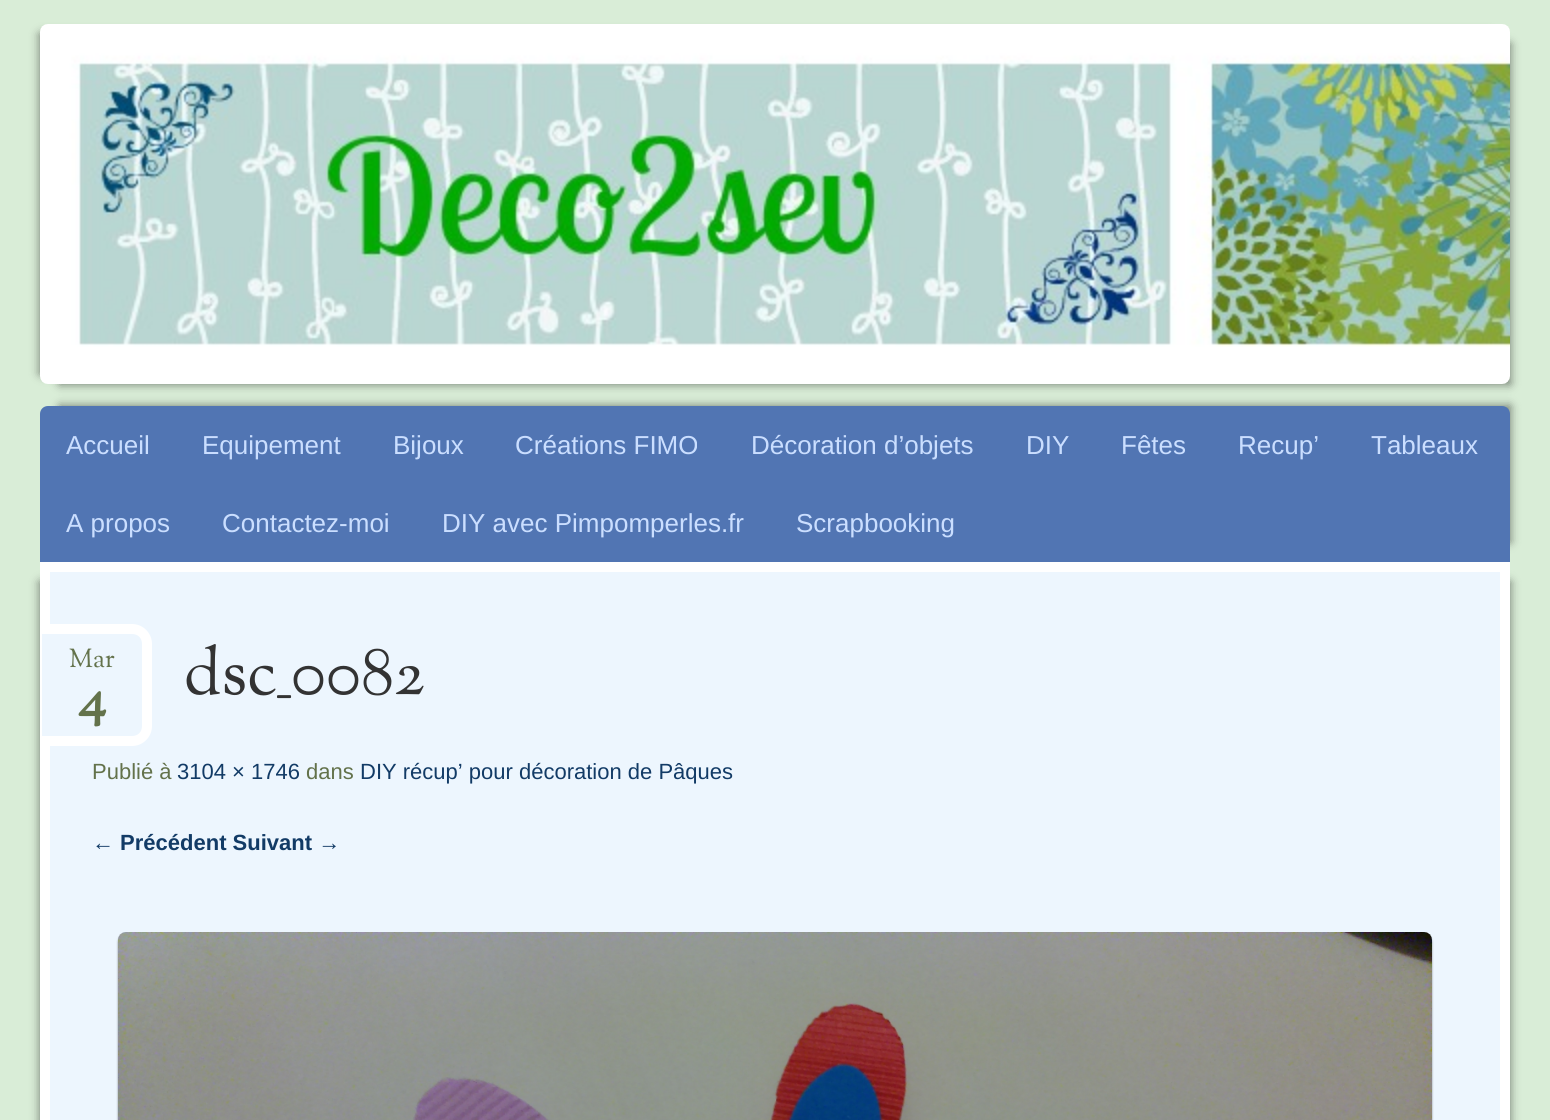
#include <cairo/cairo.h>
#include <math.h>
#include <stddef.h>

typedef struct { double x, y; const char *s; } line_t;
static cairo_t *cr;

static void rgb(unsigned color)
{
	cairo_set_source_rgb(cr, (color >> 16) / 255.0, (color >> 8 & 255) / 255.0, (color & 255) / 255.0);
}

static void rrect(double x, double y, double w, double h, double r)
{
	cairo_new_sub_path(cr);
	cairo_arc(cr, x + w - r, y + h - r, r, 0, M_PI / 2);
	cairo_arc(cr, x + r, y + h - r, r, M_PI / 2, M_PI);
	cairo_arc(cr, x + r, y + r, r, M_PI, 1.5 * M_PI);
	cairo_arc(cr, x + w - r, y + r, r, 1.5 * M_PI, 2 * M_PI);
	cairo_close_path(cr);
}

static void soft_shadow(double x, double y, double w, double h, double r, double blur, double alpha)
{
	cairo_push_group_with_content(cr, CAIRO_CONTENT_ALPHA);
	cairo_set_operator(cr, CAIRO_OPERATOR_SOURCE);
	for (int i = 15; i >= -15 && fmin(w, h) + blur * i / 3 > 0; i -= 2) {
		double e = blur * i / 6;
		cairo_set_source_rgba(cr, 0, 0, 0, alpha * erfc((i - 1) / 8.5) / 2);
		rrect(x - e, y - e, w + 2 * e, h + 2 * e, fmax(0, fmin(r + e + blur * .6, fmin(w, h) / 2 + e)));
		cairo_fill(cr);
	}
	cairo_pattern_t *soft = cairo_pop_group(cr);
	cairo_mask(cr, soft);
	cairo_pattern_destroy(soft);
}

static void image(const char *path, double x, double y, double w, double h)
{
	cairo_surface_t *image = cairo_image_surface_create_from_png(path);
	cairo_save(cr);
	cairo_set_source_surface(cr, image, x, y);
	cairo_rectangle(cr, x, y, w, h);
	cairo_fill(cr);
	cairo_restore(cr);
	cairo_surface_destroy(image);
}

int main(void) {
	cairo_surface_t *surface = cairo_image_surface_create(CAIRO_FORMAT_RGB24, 1550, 1120);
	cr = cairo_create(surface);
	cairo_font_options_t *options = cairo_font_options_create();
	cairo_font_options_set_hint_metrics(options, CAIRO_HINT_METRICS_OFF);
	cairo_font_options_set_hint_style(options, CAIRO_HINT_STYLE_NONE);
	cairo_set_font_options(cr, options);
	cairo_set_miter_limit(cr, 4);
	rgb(0xd9edd7);
	cairo_paint(cr);
	rgb(0x000000);
	soft_shadow(40, 34, 1450, 340, 0, 5, 0.5);
	soft_shadow(60, 44, 1450, 340, 0, 5, 0.5);
	image("img/1.png", 40, 24, 1470, 360);
	soft_shadow(60, 406, 1450, 136, 0, 5, 0.5);
	rgb(0x5175b3);
	cairo_new_path(cr);
	cairo_move_to(cr, 48, 406);
	cairo_line_to(cr, 1502, 406);
	cairo_curve_to(cr, 1506.5, 406, 1510, 409.5, 1510, 414);
	cairo_line_to(cr, 1510, 562);
	cairo_line_to(cr, 40, 562);
	cairo_line_to(cr, 40, 414);
	cairo_curve_to(cr, 40, 409.5, 43.5, 406, 48, 406);
	cairo_close_path(cr);
	cairo_fill(cr);
	rgb(0x000000);
	soft_shadow(40, 582, 1450, 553, 0, 5, 0.5);
	soft_shadow(60, 582, 1450, 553, 0, 5, 0.5);
	rgb(0xedf6fe);
	cairo_rectangle(cr, 45, 567, 1460, 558);
	cairo_fill_preserve(cr);
	rgb(0xffffff);
	cairo_set_line_width(cr, 10);
	cairo_stroke(cr);
	rgb(0xedf6fe);
	cairo_new_path(cr);
	cairo_move_to(cr, 42, 634);
	cairo_line_to(cr, 132, 634);
	cairo_curve_to(cr, 137.5, 634, 142, 638.5, 142, 644);
	cairo_line_to(cr, 142, 726);
	cairo_curve_to(cr, 142, 731.5, 137.5, 736, 132, 736);
	cairo_line_to(cr, 42, 736);
	cairo_close_path(cr);
	cairo_fill(cr);
	rgb(0xffffff);
	cairo_set_fill_rule(cr, CAIRO_FILL_RULE_EVEN_ODD);
	cairo_new_path(cr);
	cairo_move_to(cr, 42, 624);
	cairo_line_to(cr, 132, 624);
	cairo_curve_to(cr, 143, 624, 152, 633, 152, 644);
	cairo_line_to(cr, 152, 726);
	cairo_curve_to(cr, 152, 737, 143, 746, 132, 746);
	cairo_line_to(cr, 42, 746);
	cairo_close_path(cr);
	cairo_move_to(cr, 42, 634);
	cairo_line_to(cr, 132, 634);
	cairo_curve_to(cr, 138, 634, 142, 638, 142, 644);
	cairo_line_to(cr, 142, 726);
	cairo_curve_to(cr, 142, 732, 138, 736, 132, 736);
	cairo_line_to(cr, 42, 736);
	cairo_close_path(cr);
	cairo_fill(cr);
	rgb(0x000000);
	soft_shadow(118, 934, 1314, 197, 8, 1, 0.4);
	image("img/2.png", 118, 932, 1314, 188);
	cairo_select_font_face(cr, "Liberation Sans", CAIRO_FONT_SLANT_NORMAL, CAIRO_FONT_WEIGHT_NORMAL);
	cairo_set_font_size(cr, 26);
	rgb(0xcadeff);
	{
		static const line_t items[] = {
			{66, 454, "Accueil"},
			{202, 454, "Equipement"},
			{393, 454, "Bijoux"},
			{515, 454, "Créations FIMO"},
			{751, 454, "Décoration d’objets"},
			{1026, 454, "DIY"},
			{1121, 454, "Fêtes"},
			{1238, 454, "Recup’"},
			{1371, 454, "Tableaux"},
			{66, 532, "A propos"},
			{222, 532, "Contactez-moi"},
			{442, 532, "DIY avec Pimpomperles.fr"},
			{796, 532, "Scrapbooking"},
		};
		for (size_t i = 0; i < sizeof items / sizeof *items; i++) {
			cairo_move_to(cr, items[i].x, items[i].y);
			cairo_show_text(cr, items[i].s);
		}
	}
	cairo_select_font_face(cr, "Sorts Mill Goudy", CAIRO_FONT_SLANT_NORMAL, CAIRO_FONT_WEIGHT_NORMAL);
	rgb(0x63724b);
	cairo_move_to(cr, 69, 667);
	cairo_show_text(cr, "Mar");
	cairo_select_font_face(cr, "Sorts Mill Goudy", CAIRO_FONT_SLANT_NORMAL, CAIRO_FONT_WEIGHT_BOLD);
	cairo_set_font_size(cr, 56);
	cairo_move_to(cr, 78, 716);
	cairo_show_text(cr, "4");
	cairo_select_font_face(cr, "Sorts Mill Goudy", CAIRO_FONT_SLANT_NORMAL, CAIRO_FONT_WEIGHT_NORMAL);
	cairo_set_font_size(cr, 66);
	rgb(0x333333);
	cairo_move_to(cr, 184, 694);
	cairo_show_text(cr, "dsc_0082");
	cairo_select_font_face(cr, "Liberation Sans", CAIRO_FONT_SLANT_NORMAL, CAIRO_FONT_WEIGHT_NORMAL);
	cairo_set_font_size(cr, 22);
	rgb(0x63724b);
	cairo_move_to(cr, 92, 779);
	cairo_show_text(cr, "Publié à");
	rgb(0x123b66);
	cairo_move_to(cr, 177, 779);
	cairo_show_text(cr, "3104 × 1746");
	rgb(0x63724b);
	cairo_move_to(cr, 306, 779);
	cairo_show_text(cr, "dans");
	rgb(0x123b66);
	cairo_move_to(cr, 360, 779);
	cairo_show_text(cr, "DIY récup’ pour décoration de Pâques");
	cairo_select_font_face(cr, "Liberation Sans", CAIRO_FONT_SLANT_NORMAL, CAIRO_FONT_WEIGHT_BOLD);
	cairo_move_to(cr, 92, 850);
	cairo_show_text(cr, "← Précédent Suivant →");
	cairo_surface_write_to_png(surface, "page.png");
	cairo_font_options_destroy(options);
	cairo_destroy(cr);
	cairo_surface_destroy(surface);
	return 0;
}
